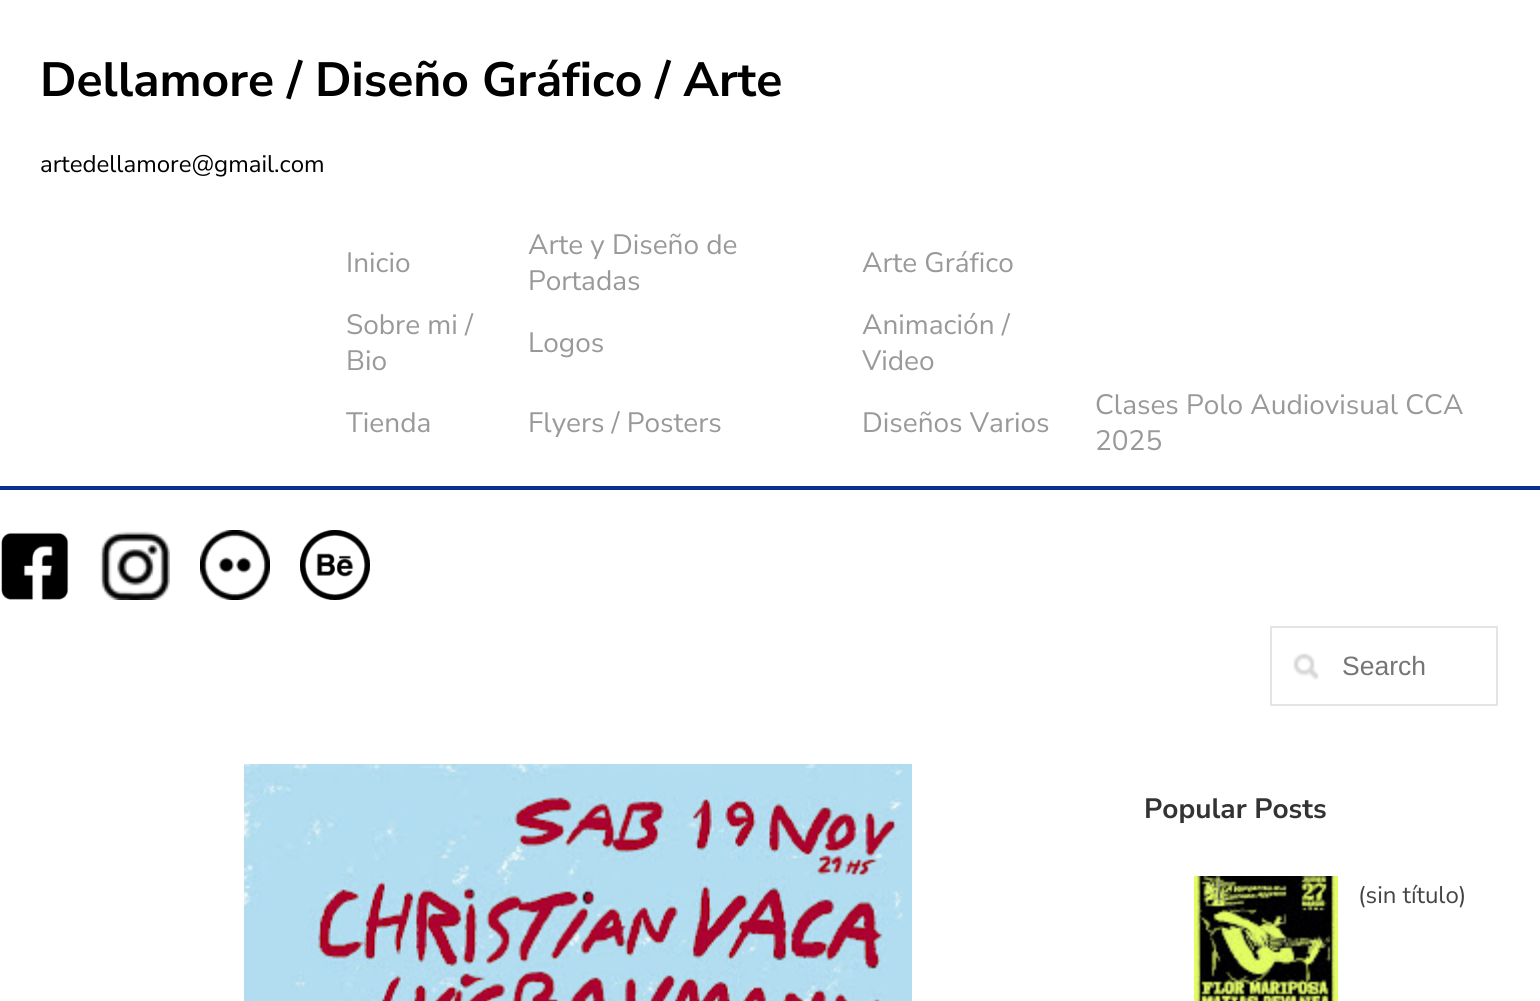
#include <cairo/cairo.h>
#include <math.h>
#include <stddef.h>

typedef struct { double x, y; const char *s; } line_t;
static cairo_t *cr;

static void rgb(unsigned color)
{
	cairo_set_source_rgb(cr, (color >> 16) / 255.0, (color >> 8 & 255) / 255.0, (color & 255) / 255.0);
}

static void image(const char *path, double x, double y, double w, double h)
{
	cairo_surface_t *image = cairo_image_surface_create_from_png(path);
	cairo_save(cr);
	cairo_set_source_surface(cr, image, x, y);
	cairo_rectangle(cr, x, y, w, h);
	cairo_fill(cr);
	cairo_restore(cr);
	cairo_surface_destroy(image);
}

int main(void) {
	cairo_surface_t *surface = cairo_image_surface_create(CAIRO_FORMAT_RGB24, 1540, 1001);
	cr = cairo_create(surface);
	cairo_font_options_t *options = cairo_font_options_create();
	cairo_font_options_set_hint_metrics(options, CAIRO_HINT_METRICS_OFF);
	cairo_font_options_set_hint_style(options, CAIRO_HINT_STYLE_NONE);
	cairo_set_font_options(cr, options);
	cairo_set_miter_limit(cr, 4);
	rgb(0xffffff);
	cairo_paint(cr);
	rgb(0x072f90);
	cairo_rectangle(cr, 0, 486, 1540, 4);
	cairo_fill(cr);
	image("img/1.png", 1, 532, 68, 68);
	image("img/2.png", 100, 531, 70, 69);
	image("img/3.png", 200, 530, 70, 70);
	image("img/4.png", 300, 530, 70, 70);
	image("img/5.png", 244, 764, 668, 237);
	image("img/6.png", 1293, 653, 26, 27);
	cairo_rectangle(cr, 1271, 627, 226, 78);
	rgb(0xe3e4e4);
	cairo_stroke(cr);
	image("img/7.png", 1194, 876, 144, 125);
	cairo_select_font_face(cr, "Nunito Sans", CAIRO_FONT_SLANT_NORMAL, CAIRO_FONT_WEIGHT_BOLD);
	cairo_set_font_size(cr, 48);
	rgb(0x000000);
	cairo_move_to(cr, 40, 96);
	cairo_show_text(cr, "Dellamore / Diseño Gráfico / Arte");
	cairo_select_font_face(cr, "Nunito Sans", CAIRO_FONT_SLANT_NORMAL, CAIRO_FONT_WEIGHT_NORMAL);
	cairo_set_font_size(cr, 24);
	cairo_move_to(cr, 40, 172);
	cairo_show_text(cr, "artedellamore@gmail.com");
	cairo_set_font_size(cr, 28);
	rgb(0x999999);
	{
		static const line_t items[] = {
			{346, 272, "Inicio"},
			{528, 254, "Arte y Diseño de"},
			{528, 290, "Portadas"},
			{862, 272, "Arte Gráfico"},
			{346, 334, "Sobre mi /"},
			{346, 370, "Bio"},
			{528, 352, "Logos"},
			{862, 334, "Animación /"},
			{862, 370, "Video"},
			{346, 432, "Tienda"},
			{528, 432, "Flyers / Posters"},
			{862, 432, "Diseños Varios"},
			{1095, 414, "Clases Polo Audiovisual CCA"},
			{1095, 450, "2025"},
		};
		for (size_t i = 0; i < sizeof items / sizeof *items; i++) {
			cairo_move_to(cr, items[i].x, items[i].y);
			cairo_show_text(cr, items[i].s);
		}
	}
	cairo_select_font_face(cr, "Liberation Sans", CAIRO_FONT_SLANT_NORMAL, CAIRO_FONT_WEIGHT_NORMAL);
	cairo_set_font_size(cr, 26.5);
	rgb(0x757575);
	cairo_move_to(cr, 1342, 675);
	cairo_show_text(cr, "Search");
	cairo_select_font_face(cr, "Nunito Sans", CAIRO_FONT_SLANT_NORMAL, CAIRO_FONT_WEIGHT_BOLD);
	cairo_set_font_size(cr, 28);
	rgb(0x333333);
	cairo_move_to(cr, 1144, 818);
	cairo_show_text(cr, "Popular Posts");
	cairo_select_font_face(cr, "Nunito Sans", CAIRO_FONT_SLANT_NORMAL, CAIRO_FONT_WEIGHT_NORMAL);
	cairo_set_font_size(cr, 24);
	rgb(0x444444);
	cairo_move_to(cr, 1358, 903);
	cairo_show_text(cr, "(sin título)");
	cairo_surface_write_to_png(surface, "page.png");
	cairo_font_options_destroy(options);
	cairo_destroy(cr);
	cairo_surface_destroy(surface);
	return 0;
}
